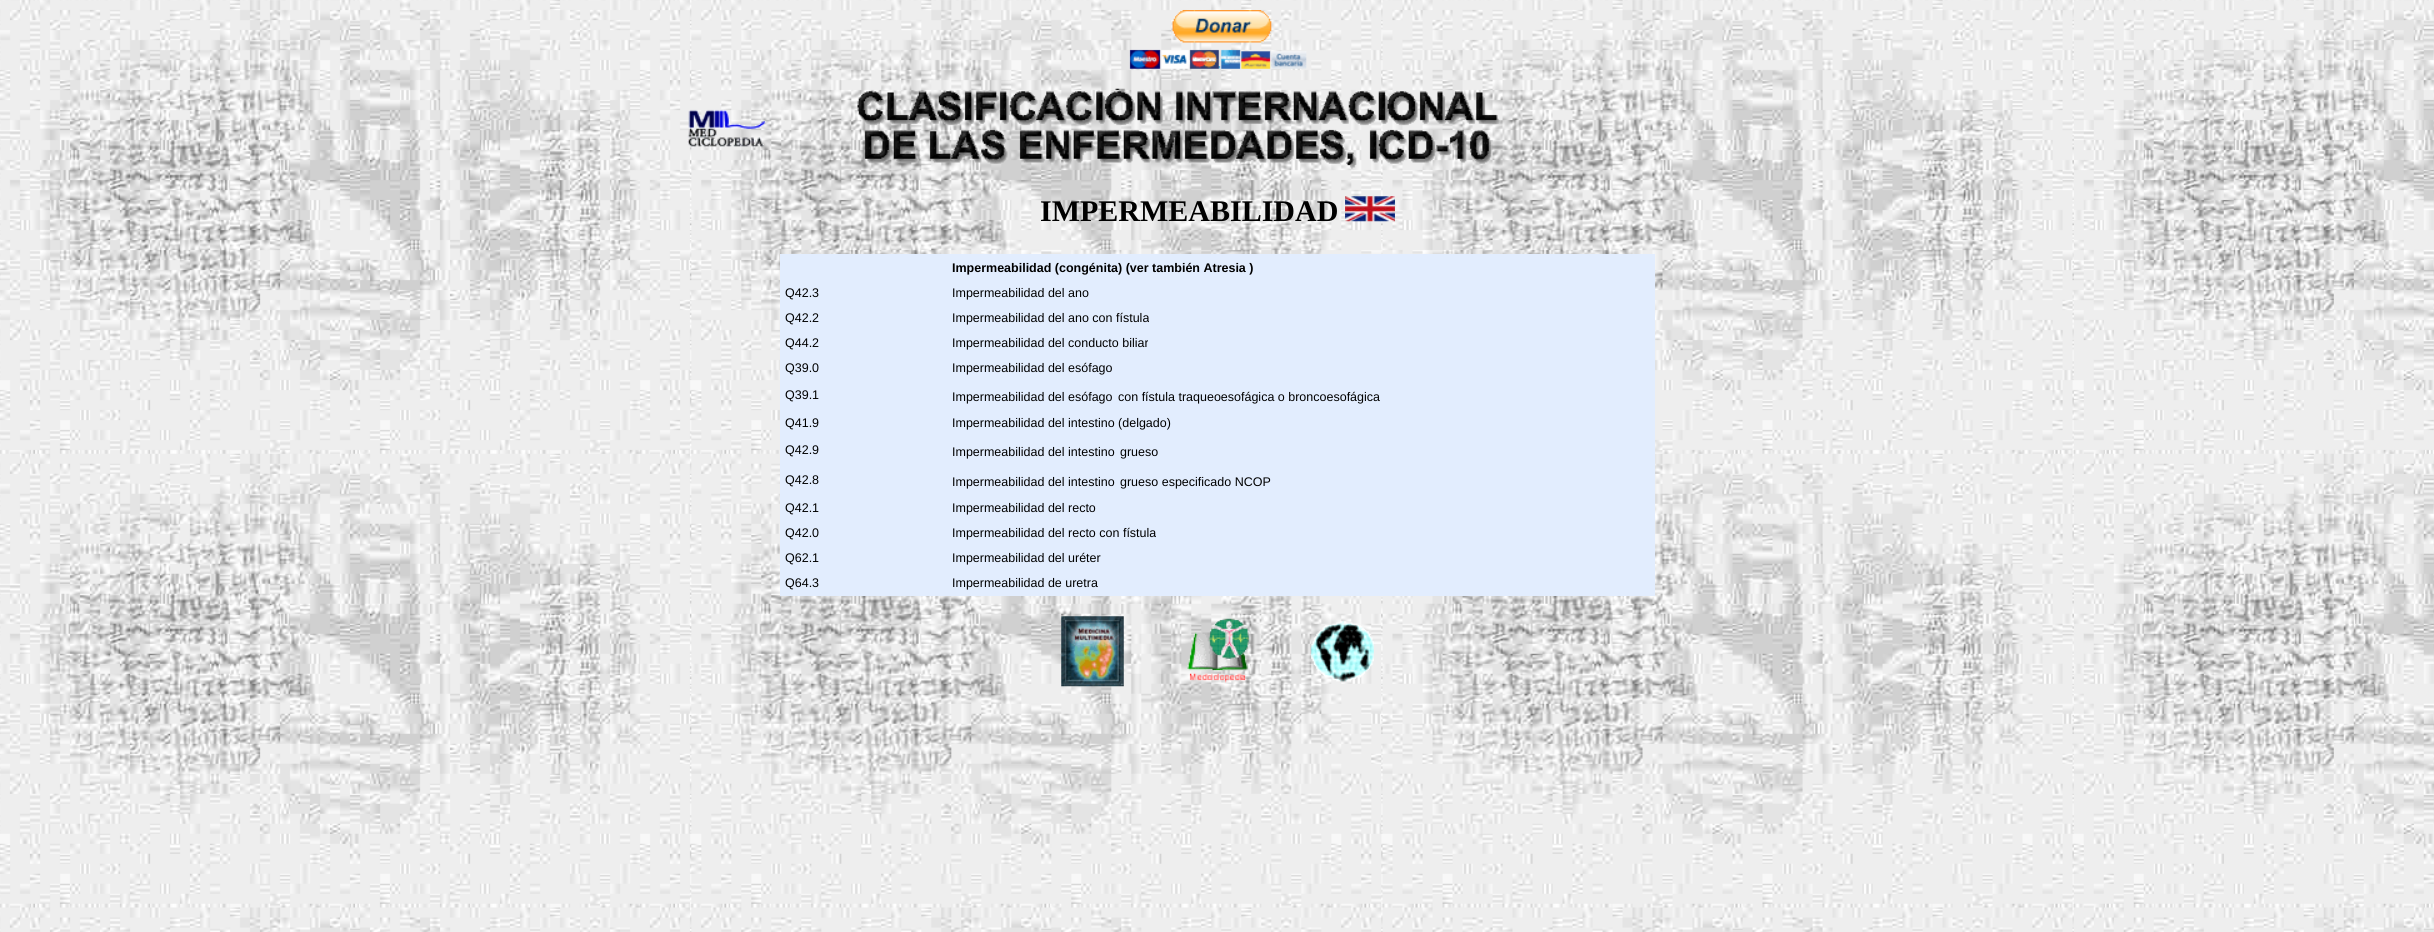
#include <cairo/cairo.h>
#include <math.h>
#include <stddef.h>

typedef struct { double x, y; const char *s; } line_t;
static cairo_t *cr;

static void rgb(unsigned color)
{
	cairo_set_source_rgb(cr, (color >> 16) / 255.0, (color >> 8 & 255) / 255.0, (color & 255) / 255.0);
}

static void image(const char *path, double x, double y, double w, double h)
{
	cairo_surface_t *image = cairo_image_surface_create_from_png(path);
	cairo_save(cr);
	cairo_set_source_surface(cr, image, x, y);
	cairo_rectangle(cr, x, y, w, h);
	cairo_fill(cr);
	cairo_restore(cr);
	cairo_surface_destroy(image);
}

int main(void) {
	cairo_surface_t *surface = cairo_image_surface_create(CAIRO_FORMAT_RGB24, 2434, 932);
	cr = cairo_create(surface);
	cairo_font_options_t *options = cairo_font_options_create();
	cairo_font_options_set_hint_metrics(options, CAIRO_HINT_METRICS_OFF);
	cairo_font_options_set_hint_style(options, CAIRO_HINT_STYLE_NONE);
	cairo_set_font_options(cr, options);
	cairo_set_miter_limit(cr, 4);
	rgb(0xffffff);
	cairo_paint(cr);
	image("img/1.png", 0, 0, 2434, 932);
	image("img/2.png", 1129, 10, 178, 59);
	image("img/3.png", 687, 88, 1013, 81);
	image("img/4.png", 1345, 196, 50, 26);
	rgb(0xe2edfe);
	cairo_rectangle(cr, 780, 254, 875, 342);
	cairo_fill(cr);
	image("img/5.png", 1061, 616, 63, 71);
	image("img/6.png", 1187, 618, 62, 65);
	image("img/7.png", 1311, 621, 63, 61);
	cairo_select_font_face(cr, "Liberation Serif", CAIRO_FONT_SLANT_NORMAL, CAIRO_FONT_WEIGHT_BOLD);
	cairo_set_font_size(cr, 30);
	rgb(0x000000);
	cairo_move_to(cr, 1040, 221);
	cairo_show_text(cr, "IMPERMEABILIDAD");
	cairo_select_font_face(cr, "Liberation Sans", CAIRO_FONT_SLANT_NORMAL, CAIRO_FONT_WEIGHT_BOLD);
	cairo_set_font_size(cr, 12.5);
	cairo_move_to(cr, 952, 272);
	cairo_show_text(cr, "Impermeabilidad (congénita) (ver también Atresia )");
	cairo_select_font_face(cr, "Liberation Sans", CAIRO_FONT_SLANT_NORMAL, CAIRO_FONT_WEIGHT_NORMAL);
	{
		static const line_t items[] = {
			{785, 297, "Q42.3"},
			{952, 297, "Impermeabilidad del ano"},
			{785, 322, "Q42.2"},
			{952, 322, "Impermeabilidad del ano con fístula"},
			{785, 347, "Q44.2"},
			{952, 347, "Impermeabilidad del conducto biliar"},
			{785, 372, "Q39.0"},
			{952, 372, "Impermeabilidad del esófago"},
			{785, 399, "Q39.1"},
			{952, 401, "Impermeabilidad del esófago"},
			{1118, 401, "con fístula traqueoesofágica o broncoesofágica"},
			{785, 427, "Q41.9"},
			{952, 427, "Impermeabilidad del intestino (delgado)"},
			{785, 454, "Q42.9"},
			{952, 456, "Impermeabilidad del intestino"},
			{1120, 456, "grueso"},
			{785, 484, "Q42.8"},
			{952, 486, "Impermeabilidad del intestino"},
			{1120, 486, "grueso especificado NCOP"},
			{785, 512, "Q42.1"},
			{952, 512, "Impermeabilidad del recto"},
			{785, 537, "Q42.0"},
			{952, 537, "Impermeabilidad del recto con fístula"},
			{785, 562, "Q62.1"},
			{952, 562, "Impermeabilidad del uréter"},
			{785, 587, "Q64.3"},
			{952, 587, "Impermeabilidad de uretra"},
		};
		for (size_t i = 0; i < sizeof items / sizeof *items; i++) {
			cairo_move_to(cr, items[i].x, items[i].y);
			cairo_show_text(cr, items[i].s);
		}
	}
	cairo_surface_write_to_png(surface, "page.png");
	cairo_font_options_destroy(options);
	cairo_destroy(cr);
	cairo_surface_destroy(surface);
	return 0;
}
